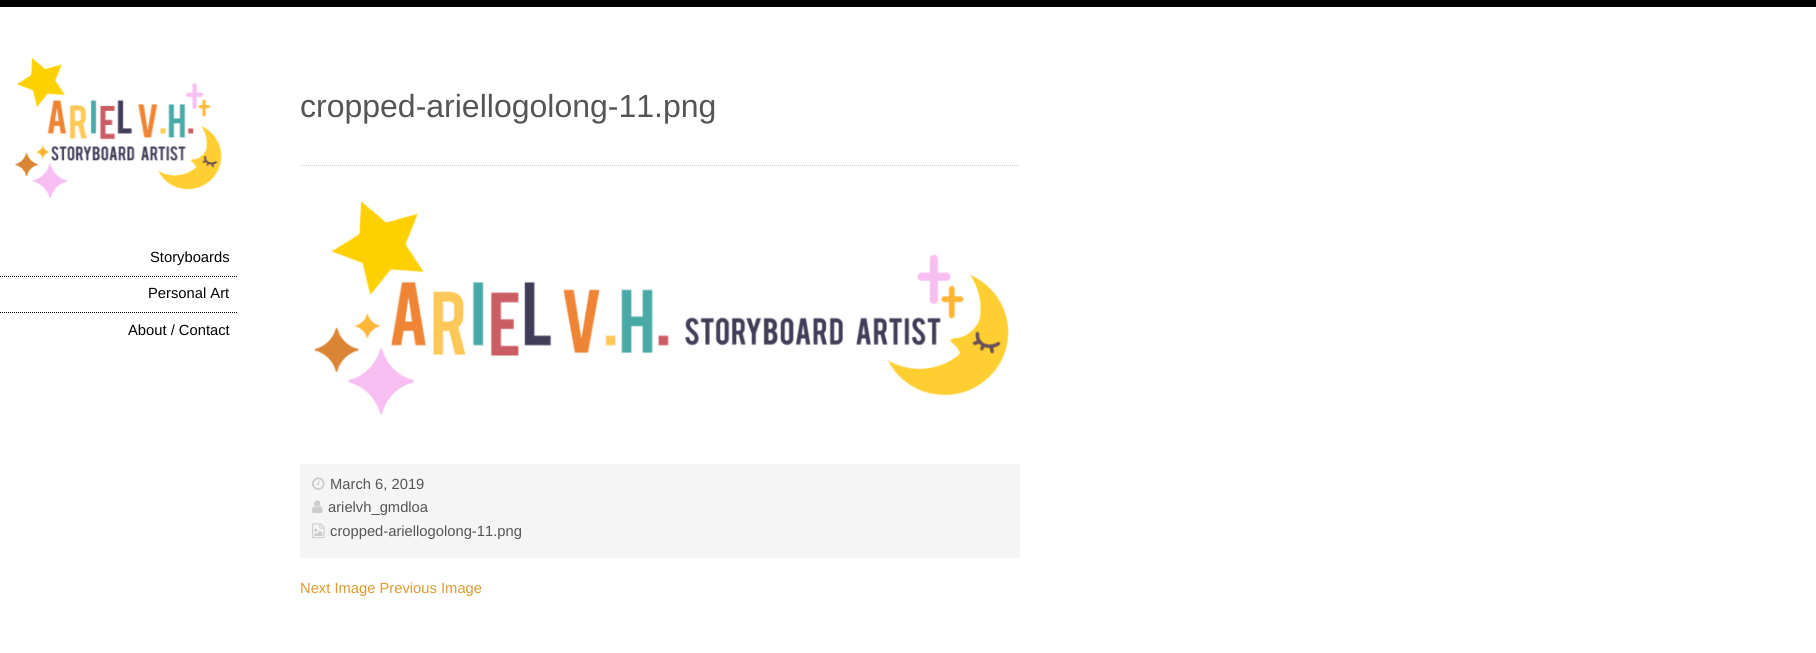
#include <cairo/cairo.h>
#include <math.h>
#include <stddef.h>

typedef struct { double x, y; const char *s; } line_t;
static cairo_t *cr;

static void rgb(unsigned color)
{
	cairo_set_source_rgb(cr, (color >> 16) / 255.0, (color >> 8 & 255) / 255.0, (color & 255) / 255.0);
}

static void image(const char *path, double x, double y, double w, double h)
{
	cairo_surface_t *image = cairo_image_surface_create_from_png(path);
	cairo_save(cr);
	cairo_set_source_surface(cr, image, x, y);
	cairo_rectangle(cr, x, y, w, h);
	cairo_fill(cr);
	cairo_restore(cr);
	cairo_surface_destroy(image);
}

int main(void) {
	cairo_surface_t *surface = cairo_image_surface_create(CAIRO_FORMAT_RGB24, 1816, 653);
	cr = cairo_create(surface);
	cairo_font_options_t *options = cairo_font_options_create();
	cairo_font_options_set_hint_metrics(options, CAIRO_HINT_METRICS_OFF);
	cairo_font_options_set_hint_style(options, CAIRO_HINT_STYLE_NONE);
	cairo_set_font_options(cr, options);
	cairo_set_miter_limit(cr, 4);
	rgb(0xffffff);
	cairo_paint(cr);
	rgb(0x000000);
	cairo_rectangle(cr, 0, 0, 1816, 7);
	cairo_fill(cr);
	image("img/1.png", 14, 57, 209, 142);
	cairo_new_path(cr);
	cairo_move_to(cr, 0, 276.5);
	cairo_line_to(cr, 238, 276.5);
	cairo_set_line_width(cr, 1);
	cairo_set_dash(cr, (double[]){1, 1}, 2, 0);
	cairo_stroke(cr);
	cairo_new_path(cr);
	cairo_move_to(cr, 0, 312.5);
	cairo_line_to(cr, 238, 312.5);
	cairo_stroke(cr);
	cairo_new_path(cr);
	cairo_move_to(cr, 300, 165.5);
	cairo_line_to(cr, 1020, 165.5);
	rgb(0xcccccc);
	cairo_stroke(cr);
	image("img/2.png", 314, 201, 695, 213);
	rgb(0xf5f5f5);
	cairo_rectangle(cr, 300, 464, 720, 94);
	cairo_fill(cr);
	image("img/3.png", 312, 477, 13, 13);
	image("img/4.png", 312, 500, 11, 13);
	image("img/5.png", 312, 523, 13, 16);
	cairo_select_font_face(cr, "Liberation Sans", CAIRO_FONT_SLANT_NORMAL, CAIRO_FONT_WEIGHT_NORMAL);
	cairo_set_font_size(cr, 14.75);
	rgb(0x000000);
	{
		static const line_t items[] = {
			{150, 262, "Storyboards"},
			{148, 298, "Personal Art"},
			{128, 335, "About / Contact"},
		};
		for (size_t i = 0; i < sizeof items / sizeof *items; i++) {
			cairo_move_to(cr, items[i].x, items[i].y);
			cairo_show_text(cr, items[i].s);
		}
	}
	cairo_set_font_size(cr, 32);
	rgb(0x555555);
	cairo_move_to(cr, 300, 117);
	cairo_show_text(cr, "cropped-ariellogolong-11.png");
	cairo_set_font_size(cr, 14.75);
	{
		static const line_t items[] = {
			{330, 489, "March 6, 2019"},
			{328, 512, "arielvh_gmdloa"},
			{330, 536, "cropped-ariellogolong-11.png"},
		};
		for (size_t i = 0; i < sizeof items / sizeof *items; i++) {
			cairo_move_to(cr, items[i].x, items[i].y);
			cairo_show_text(cr, items[i].s);
		}
	}
	rgb(0xdd9933);
	cairo_move_to(cr, 300, 593);
	cairo_show_text(cr, "Next Image Previous Image");
	cairo_surface_write_to_png(surface, "page.png");
	cairo_font_options_destroy(options);
	cairo_destroy(cr);
	cairo_surface_destroy(surface);
	return 0;
}
